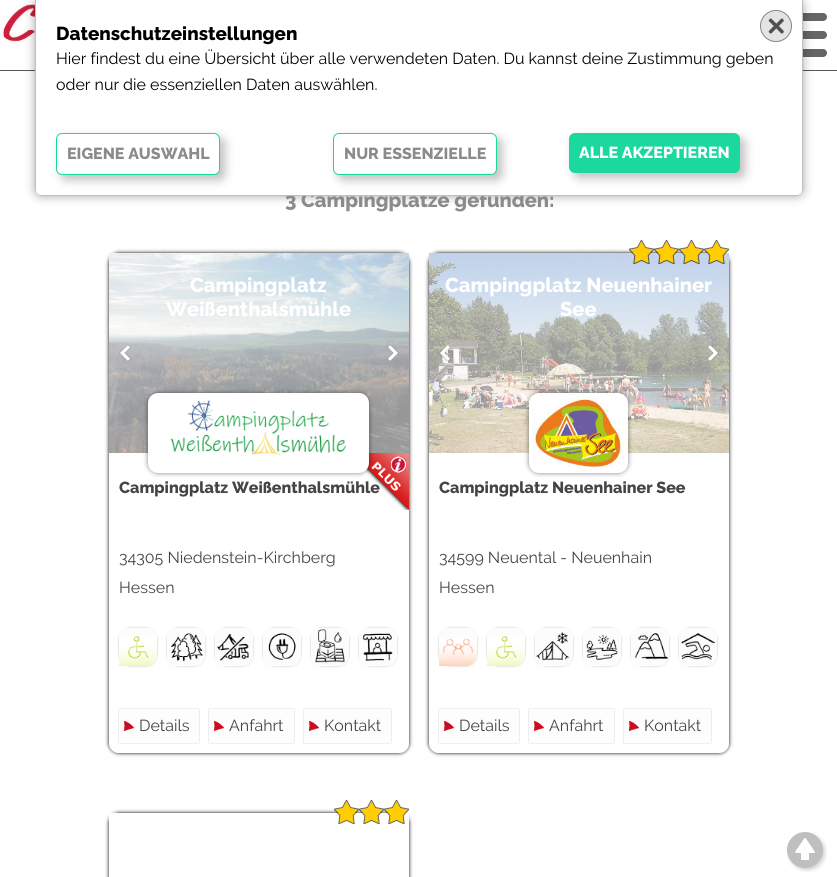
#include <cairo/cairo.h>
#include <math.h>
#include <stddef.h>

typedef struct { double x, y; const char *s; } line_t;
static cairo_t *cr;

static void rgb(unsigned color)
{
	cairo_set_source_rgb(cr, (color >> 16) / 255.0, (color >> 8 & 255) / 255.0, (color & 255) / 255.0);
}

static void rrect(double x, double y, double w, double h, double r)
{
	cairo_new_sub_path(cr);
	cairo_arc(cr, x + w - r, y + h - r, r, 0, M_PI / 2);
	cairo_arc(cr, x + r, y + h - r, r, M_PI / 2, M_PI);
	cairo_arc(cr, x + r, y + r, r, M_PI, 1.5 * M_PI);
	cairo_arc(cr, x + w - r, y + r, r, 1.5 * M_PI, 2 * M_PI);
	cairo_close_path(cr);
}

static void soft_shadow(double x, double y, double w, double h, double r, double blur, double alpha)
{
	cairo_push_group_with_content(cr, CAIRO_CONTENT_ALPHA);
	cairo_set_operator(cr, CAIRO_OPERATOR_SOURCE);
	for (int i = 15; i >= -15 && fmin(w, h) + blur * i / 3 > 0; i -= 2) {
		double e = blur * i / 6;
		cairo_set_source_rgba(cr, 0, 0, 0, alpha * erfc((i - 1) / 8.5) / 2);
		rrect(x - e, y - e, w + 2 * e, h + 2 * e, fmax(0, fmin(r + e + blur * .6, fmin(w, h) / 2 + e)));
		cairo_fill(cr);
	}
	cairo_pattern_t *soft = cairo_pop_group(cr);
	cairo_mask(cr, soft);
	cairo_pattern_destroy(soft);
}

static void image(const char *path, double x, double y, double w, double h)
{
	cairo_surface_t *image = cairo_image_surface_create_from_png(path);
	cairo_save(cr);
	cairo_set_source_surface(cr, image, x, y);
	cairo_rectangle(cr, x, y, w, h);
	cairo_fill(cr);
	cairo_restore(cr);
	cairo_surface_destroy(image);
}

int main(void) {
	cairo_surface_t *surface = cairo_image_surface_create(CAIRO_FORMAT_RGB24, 837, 877);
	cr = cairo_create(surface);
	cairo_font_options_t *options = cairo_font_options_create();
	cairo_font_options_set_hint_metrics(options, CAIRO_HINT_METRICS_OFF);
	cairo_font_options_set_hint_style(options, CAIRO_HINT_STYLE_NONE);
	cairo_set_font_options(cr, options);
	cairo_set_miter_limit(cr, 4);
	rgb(0xffffff);
	cairo_paint(cr);
	rgb(0x575757);
	cairo_rectangle(cr, 0, 70, 837, 1);
	cairo_fill(cr);
	image("img/1.png", 0, 0, 35, 69);
	rgb(0x666666);
	rrect(767, 13, 60, 8, 4);
	cairo_fill(cr);
	rrect(767, 31, 60, 8, 4);
	cairo_fill(cr);
	rrect(767, 49, 60, 8, 4);
	cairo_fill(cr);
	rgb(0x000000);
	soft_shadow(35, 0, 768, 196, 6, 5, 0.35);
	cairo_save(cr);
	cairo_set_fill_rule(cr, CAIRO_FILL_RULE_EVEN_ODD);
	cairo_new_path(cr);
	cairo_move_to(cr, 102, 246);
	cairo_line_to(cr, 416, 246);
	cairo_line_to(cr, 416, 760);
	cairo_line_to(cr, 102, 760);
	cairo_close_path(cr);
	cairo_move_to(cr, 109, 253);
	cairo_line_to(cr, 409, 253);
	cairo_line_to(cr, 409, 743);
	cairo_curve_to(cr, 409, 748.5, 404.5, 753, 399, 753);
	cairo_line_to(cr, 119, 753);
	cairo_curve_to(cr, 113.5, 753, 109, 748.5, 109, 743);
	cairo_close_path(cr);
	cairo_clip(cr);
	soft_shadow(109, 253, 300, 500, 10, 2, 1);
	cairo_restore(cr);
	image("img/3.png", 109, 253, 300, 200);
	image("img/7.png", 365, 453, 44, 57);
	soft_shadow(148, 393, 221, 80, 10, 2.5, 0.5);
	rgb(0xffffff);
	rrect(148, 393, 221, 80, 10);
	cairo_fill(cr);
	image("img/4.png", 170, 400, 176, 56);
	image("img/5.png", 119, 345, 12, 16);
	image("img/6.png", 387, 345, 12, 16);
	cairo_save(cr);
	cairo_set_fill_rule(cr, CAIRO_FILL_RULE_EVEN_ODD);
	cairo_new_path(cr);
	cairo_move_to(cr, 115, 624);
	cairo_line_to(cr, 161, 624);
	cairo_line_to(cr, 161, 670);
	cairo_line_to(cr, 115, 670);
	cairo_close_path(cr);
	cairo_move_to(cr, 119, 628);
	cairo_line_to(cr, 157, 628);
	cairo_line_to(cr, 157, 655);
	cairo_curve_to(cr, 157, 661, 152, 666, 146, 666);
	cairo_line_to(cr, 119, 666);
	cairo_close_path(cr);
	cairo_clip(cr);
	rgb(0x000000);
	soft_shadow(119, 628, 38, 38, 11, 1, 0.25);
	cairo_restore(cr);
	cairo_set_source_rgba(cr, 0.98, 0.98, 0.98, 0.5);
	cairo_new_path(cr);
	cairo_move_to(cr, 119, 628);
	cairo_line_to(cr, 157, 628);
	cairo_line_to(cr, 157, 655);
	cairo_curve_to(cr, 157, 661, 152, 666, 146, 666);
	cairo_line_to(cr, 119, 666);
	cairo_close_path(cr);
	cairo_fill(cr);
	image("img/8.png", 119, 636, 38, 30);
	cairo_save(cr);
	cairo_set_fill_rule(cr, CAIRO_FILL_RULE_EVEN_ODD);
	cairo_new_path(cr);
	cairo_move_to(cr, 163, 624);
	cairo_line_to(cr, 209, 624);
	cairo_line_to(cr, 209, 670);
	cairo_line_to(cr, 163, 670);
	cairo_close_path(cr);
	cairo_move_to(cr, 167, 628);
	cairo_line_to(cr, 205, 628);
	cairo_line_to(cr, 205, 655);
	cairo_curve_to(cr, 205, 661, 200, 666, 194, 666);
	cairo_line_to(cr, 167, 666);
	cairo_close_path(cr);
	cairo_clip(cr);
	rgb(0x000000);
	soft_shadow(167, 628, 38, 38, 11, 1, 0.25);
	cairo_restore(cr);
	cairo_new_path(cr);
	cairo_move_to(cr, 167, 628);
	cairo_line_to(cr, 205, 628);
	cairo_line_to(cr, 205, 655);
	cairo_curve_to(cr, 205, 661, 200, 666, 194, 666);
	cairo_line_to(cr, 167, 666);
	cairo_close_path(cr);
	cairo_fill(cr);
	image("img/9.png", 170, 633, 33, 29);
	cairo_save(cr);
	cairo_set_fill_rule(cr, CAIRO_FILL_RULE_EVEN_ODD);
	cairo_new_path(cr);
	cairo_move_to(cr, 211, 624);
	cairo_line_to(cr, 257, 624);
	cairo_line_to(cr, 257, 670);
	cairo_line_to(cr, 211, 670);
	cairo_close_path(cr);
	cairo_move_to(cr, 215, 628);
	cairo_line_to(cr, 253, 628);
	cairo_line_to(cr, 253, 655);
	cairo_curve_to(cr, 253, 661, 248, 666, 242, 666);
	cairo_line_to(cr, 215, 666);
	cairo_close_path(cr);
	cairo_clip(cr);
	rgb(0x000000);
	soft_shadow(215, 628, 38, 38, 11, 1, 0.25);
	cairo_restore(cr);
	cairo_new_path(cr);
	cairo_move_to(cr, 215, 628);
	cairo_line_to(cr, 253, 628);
	cairo_line_to(cr, 253, 655);
	cairo_curve_to(cr, 253, 661, 248, 666, 242, 666);
	cairo_line_to(cr, 215, 666);
	cairo_close_path(cr);
	cairo_fill(cr);
	image("img/10.png", 217, 634, 33, 27);
	cairo_save(cr);
	cairo_set_fill_rule(cr, CAIRO_FILL_RULE_EVEN_ODD);
	cairo_new_path(cr);
	cairo_move_to(cr, 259, 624);
	cairo_line_to(cr, 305, 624);
	cairo_line_to(cr, 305, 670);
	cairo_line_to(cr, 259, 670);
	cairo_close_path(cr);
	cairo_move_to(cr, 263, 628);
	cairo_line_to(cr, 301, 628);
	cairo_line_to(cr, 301, 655);
	cairo_curve_to(cr, 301, 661, 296, 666, 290, 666);
	cairo_line_to(cr, 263, 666);
	cairo_close_path(cr);
	cairo_clip(cr);
	rgb(0x000000);
	soft_shadow(263, 628, 38, 38, 11, 1, 0.25);
	cairo_restore(cr);
	cairo_new_path(cr);
	cairo_move_to(cr, 263, 628);
	cairo_line_to(cr, 301, 628);
	cairo_line_to(cr, 301, 655);
	cairo_curve_to(cr, 301, 661, 296, 666, 290, 666);
	cairo_line_to(cr, 263, 666);
	cairo_close_path(cr);
	cairo_fill(cr);
	image("img/11.png", 268, 633, 28, 27);
	cairo_save(cr);
	cairo_set_fill_rule(cr, CAIRO_FILL_RULE_EVEN_ODD);
	cairo_new_path(cr);
	cairo_move_to(cr, 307, 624);
	cairo_line_to(cr, 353, 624);
	cairo_line_to(cr, 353, 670);
	cairo_line_to(cr, 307, 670);
	cairo_close_path(cr);
	cairo_move_to(cr, 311, 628);
	cairo_line_to(cr, 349, 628);
	cairo_line_to(cr, 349, 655);
	cairo_curve_to(cr, 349, 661, 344, 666, 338, 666);
	cairo_line_to(cr, 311, 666);
	cairo_close_path(cr);
	cairo_clip(cr);
	rgb(0x000000);
	soft_shadow(311, 628, 38, 38, 11, 1, 0.25);
	cairo_restore(cr);
	cairo_new_path(cr);
	cairo_move_to(cr, 311, 628);
	cairo_line_to(cr, 349, 628);
	cairo_line_to(cr, 349, 655);
	cairo_curve_to(cr, 349, 661, 344, 666, 338, 666);
	cairo_line_to(cr, 311, 666);
	cairo_close_path(cr);
	cairo_fill(cr);
	image("img/12.png", 315, 629, 30, 34);
	cairo_save(cr);
	cairo_set_fill_rule(cr, CAIRO_FILL_RULE_EVEN_ODD);
	cairo_new_path(cr);
	cairo_move_to(cr, 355, 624);
	cairo_line_to(cr, 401, 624);
	cairo_line_to(cr, 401, 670);
	cairo_line_to(cr, 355, 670);
	cairo_close_path(cr);
	cairo_move_to(cr, 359, 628);
	cairo_line_to(cr, 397, 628);
	cairo_line_to(cr, 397, 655);
	cairo_curve_to(cr, 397, 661, 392, 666, 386, 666);
	cairo_line_to(cr, 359, 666);
	cairo_close_path(cr);
	cairo_clip(cr);
	rgb(0x000000);
	soft_shadow(359, 628, 38, 38, 11, 1, 0.25);
	cairo_restore(cr);
	cairo_new_path(cr);
	cairo_move_to(cr, 359, 628);
	cairo_line_to(cr, 397, 628);
	cairo_line_to(cr, 397, 655);
	cairo_curve_to(cr, 397, 661, 392, 666, 386, 666);
	cairo_line_to(cr, 359, 666);
	cairo_close_path(cr);
	cairo_fill(cr);
	image("img/13.png", 362, 633, 31, 28);
	rgb(0x000000);
	soft_shadow(119, 709, 80, 34, 0, 0.5, 0.25);
	rgb(0xfdfdfd);
	cairo_rectangle(cr, 119, 709, 80, 34);
	cairo_fill(cr);
	image("img/14.png", 124, 721, 10, 10);
	rgb(0x000000);
	soft_shadow(209, 709, 85, 34, 0, 0.5, 0.25);
	rgb(0xfdfdfd);
	cairo_rectangle(cr, 209, 709, 85, 34);
	cairo_fill(cr);
	image("img/14.png", 214, 721, 10, 10);
	rgb(0x000000);
	soft_shadow(304, 709, 87, 34, 0, 0.5, 0.25);
	rgb(0xfdfdfd);
	cairo_rectangle(cr, 304, 709, 87, 34);
	cairo_fill(cr);
	image("img/14.png", 309, 721, 10, 10);
	cairo_save(cr);
	cairo_set_fill_rule(cr, CAIRO_FILL_RULE_EVEN_ODD);
	cairo_new_path(cr);
	cairo_move_to(cr, 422, 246);
	cairo_line_to(cr, 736, 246);
	cairo_line_to(cr, 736, 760);
	cairo_line_to(cr, 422, 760);
	cairo_close_path(cr);
	cairo_move_to(cr, 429, 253);
	cairo_line_to(cr, 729, 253);
	cairo_line_to(cr, 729, 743);
	cairo_curve_to(cr, 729, 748.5, 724.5, 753, 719, 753);
	cairo_line_to(cr, 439, 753);
	cairo_curve_to(cr, 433.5, 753, 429, 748.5, 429, 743);
	cairo_close_path(cr);
	cairo_clip(cr);
	rgb(0x000000);
	soft_shadow(429, 253, 300, 500, 10, 2, 1);
	cairo_restore(cr);
	image("img/16.png", 429, 253, 300, 200);
	image("img/15.png", 629, 240, 100, 24);
	rgb(0x000000);
	soft_shadow(529, 393, 99, 80, 10, 2.5, 0.5);
	rgb(0xffffff);
	rrect(529, 393, 99, 80, 10);
	cairo_fill(cr);
	image("img/17.png", 533, 397, 90, 71);
	image("img/18.png", 439, 345, 12, 16);
	image("img/19.png", 707, 345, 12, 16);
	cairo_save(cr);
	cairo_set_fill_rule(cr, CAIRO_FILL_RULE_EVEN_ODD);
	cairo_new_path(cr);
	cairo_move_to(cr, 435, 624);
	cairo_line_to(cr, 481, 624);
	cairo_line_to(cr, 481, 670);
	cairo_line_to(cr, 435, 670);
	cairo_close_path(cr);
	cairo_move_to(cr, 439, 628);
	cairo_line_to(cr, 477, 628);
	cairo_line_to(cr, 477, 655);
	cairo_curve_to(cr, 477, 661, 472, 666, 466, 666);
	cairo_line_to(cr, 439, 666);
	cairo_close_path(cr);
	cairo_clip(cr);
	rgb(0x000000);
	soft_shadow(439, 628, 38, 38, 11, 1, 0.25);
	cairo_restore(cr);
	cairo_set_source_rgba(cr, 0.98, 0.98, 0.98, 0.5);
	cairo_new_path(cr);
	cairo_move_to(cr, 439, 628);
	cairo_line_to(cr, 477, 628);
	cairo_line_to(cr, 477, 655);
	cairo_curve_to(cr, 477, 661, 472, 666, 466, 666);
	cairo_line_to(cr, 439, 666);
	cairo_close_path(cr);
	cairo_fill(cr);
	image("img/20.png", 439, 638, 38, 28);
	cairo_save(cr);
	cairo_set_fill_rule(cr, CAIRO_FILL_RULE_EVEN_ODD);
	cairo_new_path(cr);
	cairo_move_to(cr, 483, 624);
	cairo_line_to(cr, 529, 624);
	cairo_line_to(cr, 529, 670);
	cairo_line_to(cr, 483, 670);
	cairo_close_path(cr);
	cairo_move_to(cr, 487, 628);
	cairo_line_to(cr, 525, 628);
	cairo_line_to(cr, 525, 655);
	cairo_curve_to(cr, 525, 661, 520, 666, 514, 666);
	cairo_line_to(cr, 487, 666);
	cairo_close_path(cr);
	cairo_clip(cr);
	rgb(0x000000);
	soft_shadow(487, 628, 38, 38, 11, 1, 0.25);
	cairo_restore(cr);
	cairo_new_path(cr);
	cairo_move_to(cr, 487, 628);
	cairo_line_to(cr, 525, 628);
	cairo_line_to(cr, 525, 655);
	cairo_curve_to(cr, 525, 661, 520, 666, 514, 666);
	cairo_line_to(cr, 487, 666);
	cairo_close_path(cr);
	cairo_fill(cr);
	image("img/21.png", 487, 636, 38, 30);
	cairo_save(cr);
	cairo_set_fill_rule(cr, CAIRO_FILL_RULE_EVEN_ODD);
	cairo_new_path(cr);
	cairo_move_to(cr, 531, 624);
	cairo_line_to(cr, 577, 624);
	cairo_line_to(cr, 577, 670);
	cairo_line_to(cr, 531, 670);
	cairo_close_path(cr);
	cairo_move_to(cr, 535, 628);
	cairo_line_to(cr, 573, 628);
	cairo_line_to(cr, 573, 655);
	cairo_curve_to(cr, 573, 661, 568, 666, 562, 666);
	cairo_line_to(cr, 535, 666);
	cairo_close_path(cr);
	cairo_clip(cr);
	rgb(0x000000);
	soft_shadow(535, 628, 38, 38, 11, 1, 0.25);
	cairo_restore(cr);
	cairo_new_path(cr);
	cairo_move_to(cr, 535, 628);
	cairo_line_to(cr, 573, 628);
	cairo_line_to(cr, 573, 655);
	cairo_curve_to(cr, 573, 661, 568, 666, 562, 666);
	cairo_line_to(cr, 535, 666);
	cairo_close_path(cr);
	cairo_fill(cr);
	image("img/22.png", 536, 632, 36, 29);
	cairo_save(cr);
	cairo_set_fill_rule(cr, CAIRO_FILL_RULE_EVEN_ODD);
	cairo_new_path(cr);
	cairo_move_to(cr, 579, 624);
	cairo_line_to(cr, 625, 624);
	cairo_line_to(cr, 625, 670);
	cairo_line_to(cr, 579, 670);
	cairo_close_path(cr);
	cairo_move_to(cr, 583, 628);
	cairo_line_to(cr, 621, 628);
	cairo_line_to(cr, 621, 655);
	cairo_curve_to(cr, 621, 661, 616, 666, 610, 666);
	cairo_line_to(cr, 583, 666);
	cairo_close_path(cr);
	cairo_clip(cr);
	rgb(0x000000);
	soft_shadow(583, 628, 38, 38, 11, 1, 0.25);
	cairo_restore(cr);
	cairo_new_path(cr);
	cairo_move_to(cr, 583, 628);
	cairo_line_to(cr, 621, 628);
	cairo_line_to(cr, 621, 655);
	cairo_curve_to(cr, 621, 661, 616, 666, 610, 666);
	cairo_line_to(cr, 583, 666);
	cairo_close_path(cr);
	cairo_fill(cr);
	image("img/23.png", 586, 634, 32, 26);
	cairo_save(cr);
	cairo_set_fill_rule(cr, CAIRO_FILL_RULE_EVEN_ODD);
	cairo_new_path(cr);
	cairo_move_to(cr, 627, 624);
	cairo_line_to(cr, 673, 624);
	cairo_line_to(cr, 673, 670);
	cairo_line_to(cr, 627, 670);
	cairo_close_path(cr);
	cairo_move_to(cr, 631, 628);
	cairo_line_to(cr, 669, 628);
	cairo_line_to(cr, 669, 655);
	cairo_curve_to(cr, 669, 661, 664, 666, 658, 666);
	cairo_line_to(cr, 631, 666);
	cairo_close_path(cr);
	cairo_clip(cr);
	rgb(0x000000);
	soft_shadow(631, 628, 38, 38, 11, 1, 0.25);
	cairo_restore(cr);
	cairo_new_path(cr);
	cairo_move_to(cr, 631, 628);
	cairo_line_to(cr, 669, 628);
	cairo_line_to(cr, 669, 655);
	cairo_curve_to(cr, 669, 661, 664, 666, 658, 666);
	cairo_line_to(cr, 631, 666);
	cairo_close_path(cr);
	cairo_fill(cr);
	image("img/24.png", 634, 633, 34, 27);
	cairo_save(cr);
	cairo_set_fill_rule(cr, CAIRO_FILL_RULE_EVEN_ODD);
	cairo_new_path(cr);
	cairo_move_to(cr, 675, 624);
	cairo_line_to(cr, 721, 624);
	cairo_line_to(cr, 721, 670);
	cairo_line_to(cr, 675, 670);
	cairo_close_path(cr);
	cairo_move_to(cr, 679, 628);
	cairo_line_to(cr, 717, 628);
	cairo_line_to(cr, 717, 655);
	cairo_curve_to(cr, 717, 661, 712, 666, 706, 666);
	cairo_line_to(cr, 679, 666);
	cairo_close_path(cr);
	cairo_clip(cr);
	rgb(0x000000);
	soft_shadow(679, 628, 38, 38, 11, 1, 0.25);
	cairo_restore(cr);
	cairo_new_path(cr);
	cairo_move_to(cr, 679, 628);
	cairo_line_to(cr, 717, 628);
	cairo_line_to(cr, 717, 655);
	cairo_curve_to(cr, 717, 661, 712, 666, 706, 666);
	cairo_line_to(cr, 679, 666);
	cairo_close_path(cr);
	cairo_fill(cr);
	image("img/25.png", 681, 633, 34, 27);
	rgb(0x000000);
	soft_shadow(439, 709, 80, 34, 0, 0.5, 0.25);
	rgb(0xfdfdfd);
	cairo_rectangle(cr, 439, 709, 80, 34);
	cairo_fill(cr);
	image("img/14.png", 444, 721, 10, 10);
	rgb(0x000000);
	soft_shadow(529, 709, 85, 34, 0, 0.5, 0.25);
	rgb(0xfdfdfd);
	cairo_rectangle(cr, 529, 709, 85, 34);
	cairo_fill(cr);
	image("img/14.png", 534, 721, 10, 10);
	rgb(0x000000);
	soft_shadow(624, 709, 87, 34, 0, 0.5, 0.25);
	rgb(0xfdfdfd);
	cairo_rectangle(cr, 624, 709, 87, 34);
	cairo_fill(cr);
	image("img/14.png", 629, 721, 10, 10);
	cairo_save(cr);
	cairo_set_fill_rule(cr, CAIRO_FILL_RULE_EVEN_ODD);
	cairo_new_path(cr);
	cairo_move_to(cr, 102, 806);
	cairo_line_to(cr, 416, 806);
	cairo_line_to(cr, 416, 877);
	cairo_line_to(cr, 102, 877);
	cairo_close_path(cr);
	cairo_move_to(cr, 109, 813);
	cairo_line_to(cr, 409, 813);
	cairo_line_to(cr, 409, 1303);
	cairo_curve_to(cr, 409, 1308.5, 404.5, 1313, 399, 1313);
	cairo_line_to(cr, 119, 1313);
	cairo_curve_to(cr, 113.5, 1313, 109, 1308.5, 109, 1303);
	cairo_close_path(cr);
	cairo_clip(cr);
	rgb(0x000000);
	soft_shadow(109, 813, 300, 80, 10, 2, 1);
	cairo_restore(cr);
	image("img/26.png", 334, 800, 75, 24);
	image("img/27.png", 787, 832, 40, 40);
	cairo_select_font_face(cr, "Raleway ExtraBold", CAIRO_FONT_SLANT_NORMAL, CAIRO_FONT_WEIGHT_NORMAL);
	cairo_set_font_size(cr, 20);
	rgb(0x8b8b8c);
	cairo_move_to(cr, 285, 207);
	cairo_show_text(cr, "3 Campingplätze gefunden:");
	rgb(0xffffff);
	cairo_new_path(cr);
	cairo_move_to(cr, 35, 0);
	cairo_line_to(cr, 803, 0);
	cairo_line_to(cr, 803, 190);
	cairo_curve_to(cr, 803, 193.5, 800.5, 196, 797, 196);
	cairo_line_to(cr, 41, 196);
	cairo_curve_to(cr, 37.5, 196, 35, 193.5, 35, 190);
	cairo_close_path(cr);
	cairo_fill(cr);
	rgb(0xbfbfbf);
	cairo_set_fill_rule(cr, CAIRO_FILL_RULE_EVEN_ODD);
	cairo_new_path(cr);
	cairo_move_to(cr, 35, 0);
	cairo_line_to(cr, 803, 0);
	cairo_line_to(cr, 803, 190);
	cairo_curve_to(cr, 803, 193, 800, 196, 797, 196);
	cairo_line_to(cr, 41, 196);
	cairo_curve_to(cr, 38, 196, 35, 193, 35, 190);
	cairo_close_path(cr);
	cairo_move_to(cr, 36, 0);
	cairo_line_to(cr, 802, 0);
	cairo_line_to(cr, 802, 190);
	cairo_curve_to(cr, 802, 193, 800, 195, 797, 195);
	cairo_line_to(cr, 41, 195);
	cairo_curve_to(cr, 38, 195, 36, 193, 36, 190);
	cairo_close_path(cr);
	cairo_fill(cr);
	rgb(0xe4e4e4);
	cairo_arc(cr, 776, 26, 16, 0, 2 * M_PI);
	cairo_fill(cr);
	image("img/2.png", 768, 18, 16, 16);
	cairo_arc(cr, 776, 26, 15.5, 0, 2 * M_PI);
	rgb(0x888888);
	cairo_set_line_width(cr, 1);
	cairo_stroke(cr);
	rgb(0x000000);
	soft_shadow(574, 138, 171, 40, 6, 5, 0.25);
	rgb(0x1bd89e);
	rrect(569, 133, 171, 40, 6);
	cairo_fill(cr);
	cairo_set_font_size(cr, 16);
	rgb(0xffffff);
	cairo_move_to(cr, 579, 158);
	cairo_show_text(cr, "ALLE AKZEPTIEREN");
	rgb(0x000000);
	soft_shadow(338, 138, 164, 42, 6, 5, 0.25);
	rgb(0xffffff);
	rrect(333.5, 133.5, 163, 41, 5.5);
	cairo_fill_preserve(cr);
	rgb(0x1bd89e);
	cairo_stroke(cr);
	rgb(0x8b8b8c);
	cairo_move_to(cr, 344, 159);
	cairo_show_text(cr, "NUR ESSENZIELLE");
	rgb(0x000000);
	soft_shadow(61, 138, 164, 42, 6, 5, 0.25);
	rgb(0xffffff);
	rrect(56.5, 133.5, 163, 41, 5.5);
	cairo_fill_preserve(cr);
	rgb(0x1bd89e);
	cairo_stroke(cr);
	rgb(0x8b8b8c);
	cairo_move_to(cr, 67, 159);
	cairo_show_text(cr, "EIGENE AUSWAHL");
	cairo_select_font_face(cr, "Raleway", CAIRO_FONT_SLANT_NORMAL, CAIRO_FONT_WEIGHT_NORMAL);
	rgb(0x000000);
	cairo_move_to(cr, 56, 90);
	cairo_show_text(cr, "oder nur die essenziellen Daten auswählen.");
	cairo_move_to(cr, 56, 64);
	cairo_show_text(cr, "Hier findest du eine Übersicht über alle verwendeten Daten. Du kannst deine Zustimmung geben");
	cairo_select_font_face(cr, "Raleway ExtraBold", CAIRO_FONT_SLANT_NORMAL, CAIRO_FONT_WEIGHT_NORMAL);
	cairo_set_font_size(cr, 18.75);
	cairo_move_to(cr, 56, 40);
	cairo_show_text(cr, "Datenschutzeinstellungen");
	cairo_set_font_size(cr, 20);
	rgb(0xffffff);
	cairo_move_to(cr, 190, 292);
	cairo_show_text(cr, "Campingplatz");
	cairo_move_to(cr, 166, 316);
	cairo_show_text(cr, "Weißenthalsmühle");
	cairo_set_font_size(cr, 16);
	rgb(0x444444);
	cairo_move_to(cr, 119, 493);
	cairo_show_text(cr, "Campingplatz Weißenthalsmühle");
	cairo_select_font_face(cr, "Raleway", CAIRO_FONT_SLANT_NORMAL, CAIRO_FONT_WEIGHT_NORMAL);
	{
		static const line_t items[] = {
			{119, 563, "34305 Niedenstein-Kirchberg"},
			{119, 593, "Hessen"},
			{139, 731, "Details"},
			{229, 731, "Anfahrt"},
			{324, 731, "Kontakt"},
		};
		for (size_t i = 0; i < sizeof items / sizeof *items; i++) {
			cairo_move_to(cr, items[i].x, items[i].y);
			cairo_show_text(cr, items[i].s);
		}
	}
	cairo_select_font_face(cr, "Raleway ExtraBold", CAIRO_FONT_SLANT_NORMAL, CAIRO_FONT_WEIGHT_NORMAL);
	cairo_set_font_size(cr, 20);
	rgb(0xffffff);
	cairo_move_to(cr, 445, 292);
	cairo_show_text(cr, "Campingplatz Neuenhainer");
	cairo_move_to(cr, 560, 316);
	cairo_show_text(cr, "See");
	cairo_set_font_size(cr, 16);
	rgb(0x444444);
	cairo_move_to(cr, 439, 493);
	cairo_show_text(cr, "Campingplatz Neuenhainer See");
	cairo_select_font_face(cr, "Raleway", CAIRO_FONT_SLANT_NORMAL, CAIRO_FONT_WEIGHT_NORMAL);
	{
		static const line_t items[] = {
			{439, 563, "34599 Neuental - Neuenhain"},
			{439, 593, "Hessen"},
			{459, 731, "Details"},
			{549, 731, "Anfahrt"},
			{644, 731, "Kontakt"},
		};
		for (size_t i = 0; i < sizeof items / sizeof *items; i++) {
			cairo_move_to(cr, items[i].x, items[i].y);
			cairo_show_text(cr, items[i].s);
		}
	}
	cairo_surface_write_to_png(surface, "page.png");
	cairo_font_options_destroy(options);
	cairo_destroy(cr);
	cairo_surface_destroy(surface);
	return 0;
}
